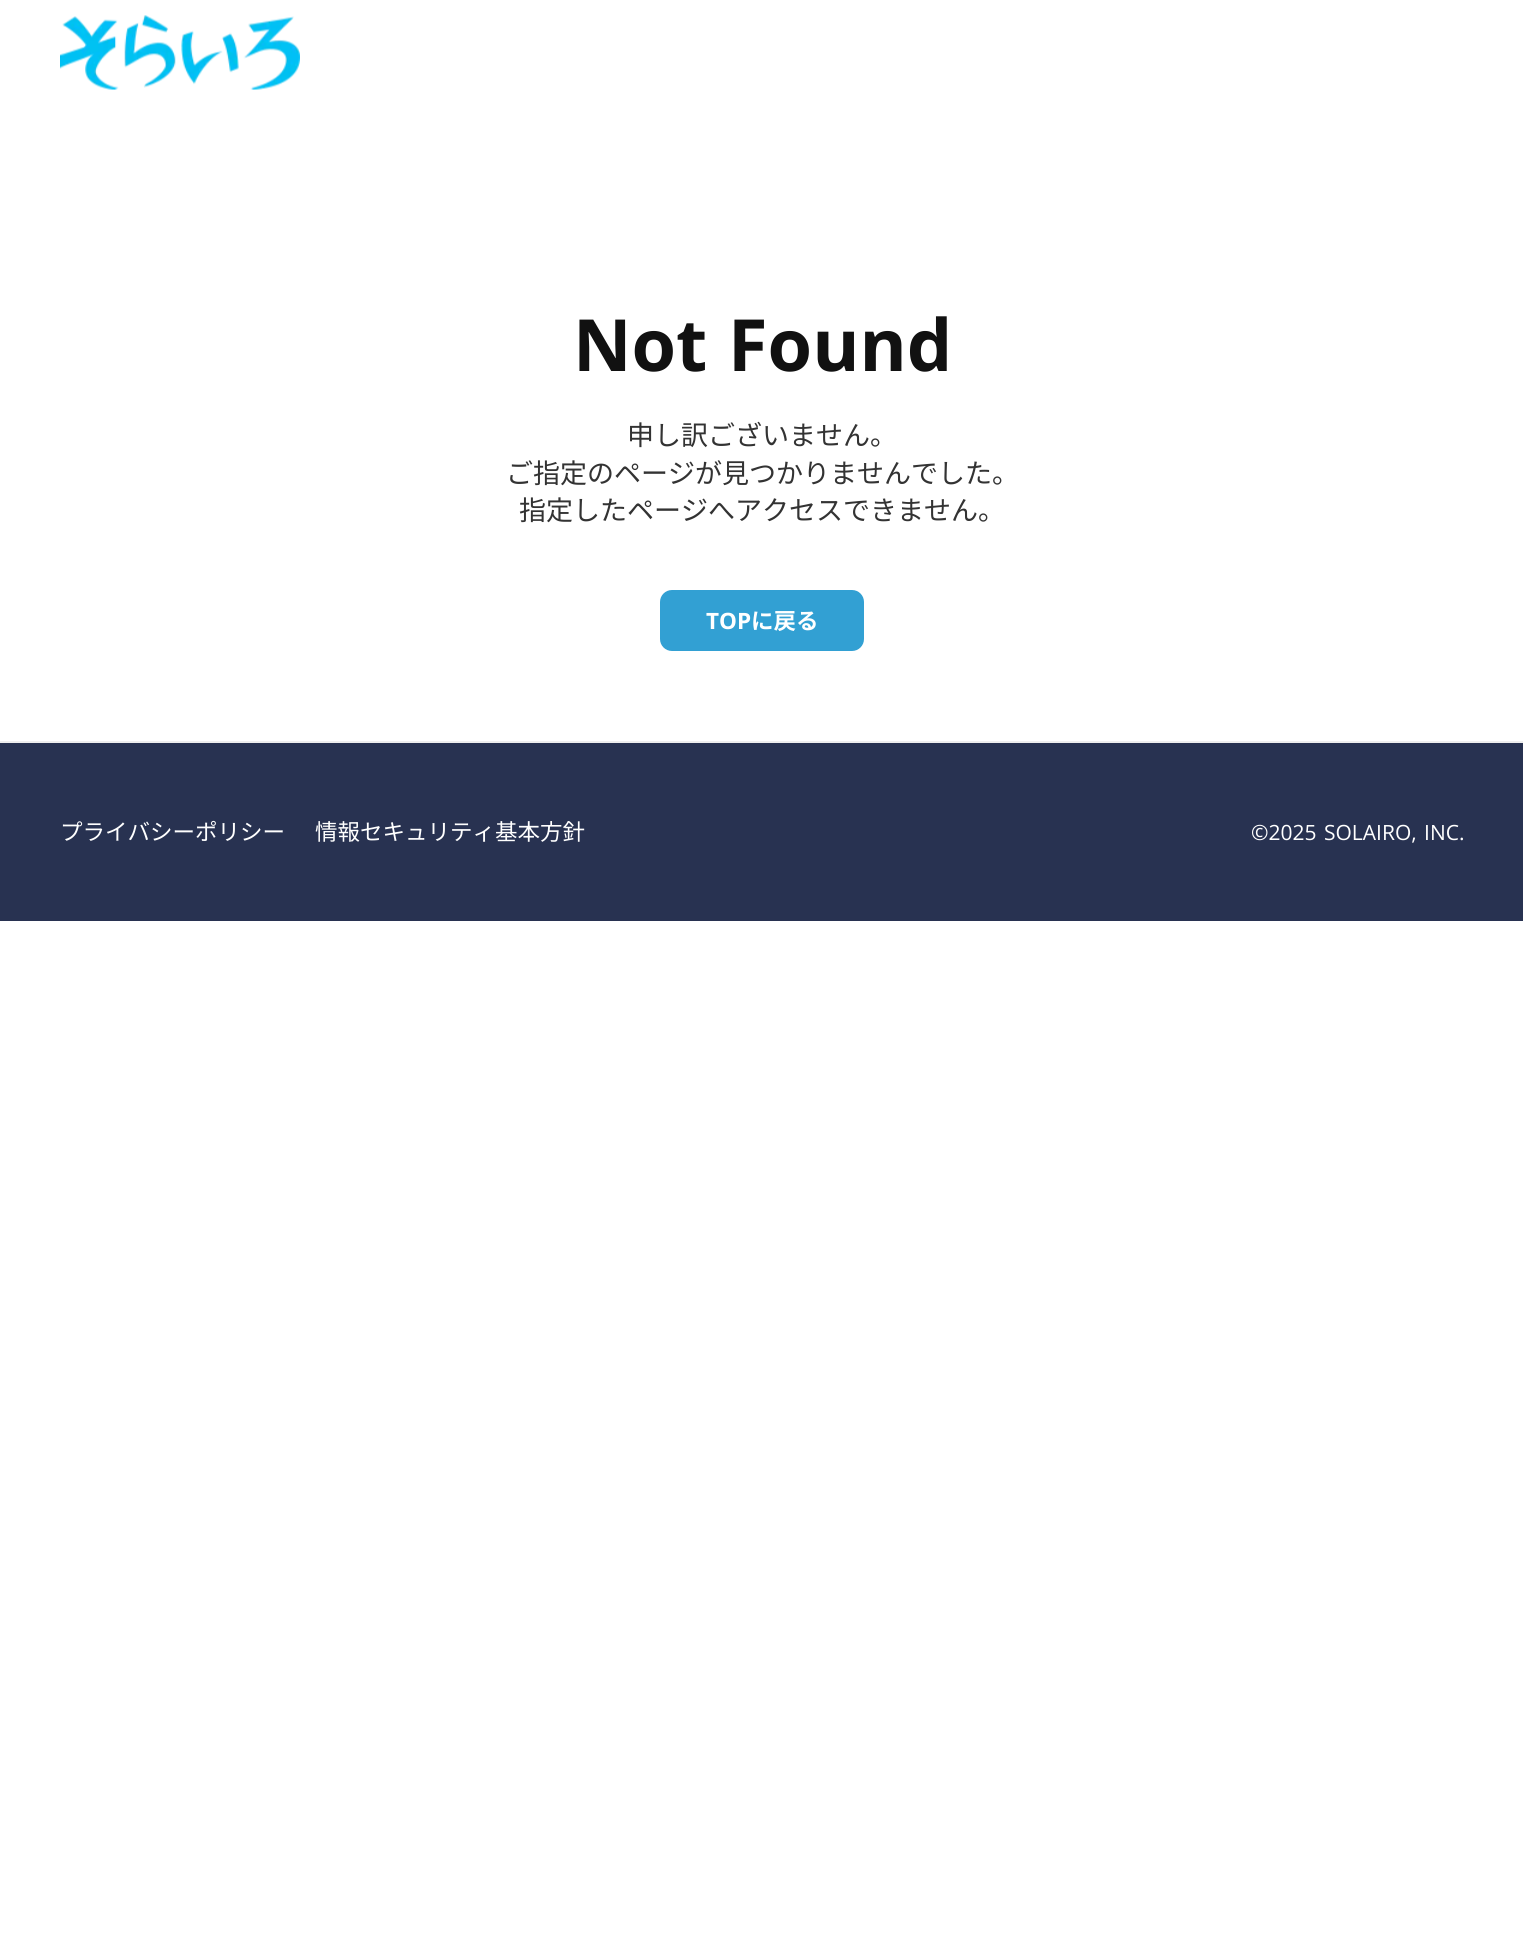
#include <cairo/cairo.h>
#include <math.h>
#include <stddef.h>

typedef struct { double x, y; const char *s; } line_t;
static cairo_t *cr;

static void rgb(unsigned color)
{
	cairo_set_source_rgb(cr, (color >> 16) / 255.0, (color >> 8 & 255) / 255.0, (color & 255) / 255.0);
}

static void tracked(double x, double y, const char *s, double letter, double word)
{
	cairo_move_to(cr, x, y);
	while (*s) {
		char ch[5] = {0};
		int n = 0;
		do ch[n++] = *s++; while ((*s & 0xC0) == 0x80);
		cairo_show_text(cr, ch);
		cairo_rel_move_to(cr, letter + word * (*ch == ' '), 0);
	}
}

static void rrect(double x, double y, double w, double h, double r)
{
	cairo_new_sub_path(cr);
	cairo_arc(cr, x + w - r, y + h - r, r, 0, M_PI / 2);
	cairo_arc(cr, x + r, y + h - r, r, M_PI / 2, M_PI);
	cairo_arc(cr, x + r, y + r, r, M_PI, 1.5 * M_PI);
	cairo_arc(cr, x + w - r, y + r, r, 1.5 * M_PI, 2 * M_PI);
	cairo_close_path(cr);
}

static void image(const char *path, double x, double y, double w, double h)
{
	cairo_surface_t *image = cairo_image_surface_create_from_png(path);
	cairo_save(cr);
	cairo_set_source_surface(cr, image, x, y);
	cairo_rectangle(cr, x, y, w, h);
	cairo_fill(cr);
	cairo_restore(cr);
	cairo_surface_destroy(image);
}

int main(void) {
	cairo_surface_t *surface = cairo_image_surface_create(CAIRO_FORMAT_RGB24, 1523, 1946);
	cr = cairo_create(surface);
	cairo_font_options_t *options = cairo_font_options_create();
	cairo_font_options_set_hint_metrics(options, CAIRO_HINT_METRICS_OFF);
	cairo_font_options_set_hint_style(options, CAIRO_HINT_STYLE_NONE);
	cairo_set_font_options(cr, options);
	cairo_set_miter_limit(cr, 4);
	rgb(0xffffff);
	cairo_paint(cr);
	image("img/1.png", 60, 15, 240, 75);
	rgb(0x32a0d3);
	rrect(660, 590, 204, 61, 12);
	cairo_fill(cr);
	rgb(0x283251);
	cairo_rectangle(cr, 0, 743, 1523, 178);
	cairo_fill(cr);
	rgb(0xeeeeee);
	cairo_rectangle(cr, 0, 741, 1523, 2);
	cairo_fill(cr);
	cairo_select_font_face(cr, "Open Sans", CAIRO_FONT_SLANT_NORMAL, CAIRO_FONT_WEIGHT_BOLD);
	cairo_set_font_size(cr, 72);
	rgb(0x111111);
	tracked(573, 371, "Not Found", 0, 2);
	cairo_select_font_face(cr, "Noto Sans JP", CAIRO_FONT_SLANT_NORMAL, CAIRO_FONT_WEIGHT_NORMAL);
	cairo_set_font_size(cr, 27);
	rgb(0x333333);
	{
		static const line_t items[] = {
			{627, 445, "申し訳ございません。"},
			{506, 483, "ご指定のページが見つかりませんでした。"},
			{519, 520, "指定したページへアクセスできません。"},
		};
		for (size_t i = 0; i < sizeof items / sizeof *items; i++) {
			cairo_move_to(cr, items[i].x, items[i].y);
			cairo_show_text(cr, items[i].s);
		}
	}
	cairo_select_font_face(cr, "Open Sans", CAIRO_FONT_SLANT_NORMAL, CAIRO_FONT_WEIGHT_BOLD);
	cairo_set_font_size(cr, 22.5);
	rgb(0xffffff);
	cairo_move_to(cr, 706, 629);
	cairo_show_text(cr, "TOP");
	cairo_select_font_face(cr, "Noto Sans JP", CAIRO_FONT_SLANT_NORMAL, CAIRO_FONT_WEIGHT_BOLD);
	cairo_move_to(cr, 751, 629);
	cairo_show_text(cr, "に戻る");
	cairo_select_font_face(cr, "Noto Sans JP", CAIRO_FONT_SLANT_NORMAL, CAIRO_FONT_WEIGHT_NORMAL);
	cairo_move_to(cr, 60, 840);
	cairo_show_text(cr, "プライバシーポリシー");
	cairo_move_to(cr, 315, 840);
	cairo_show_text(cr, "情報セキュリティ基本方針");
	cairo_select_font_face(cr, "Open Sans", CAIRO_FONT_SLANT_NORMAL, CAIRO_FONT_WEIGHT_NORMAL);
	cairo_set_font_size(cr, 21);
	tracked(1251, 840, "©2025 SOLAIRO, INC.", 0, 2);
	cairo_surface_write_to_png(surface, "page.png");
	cairo_font_options_destroy(options);
	cairo_destroy(cr);
	cairo_surface_destroy(surface);
	return 0;
}
